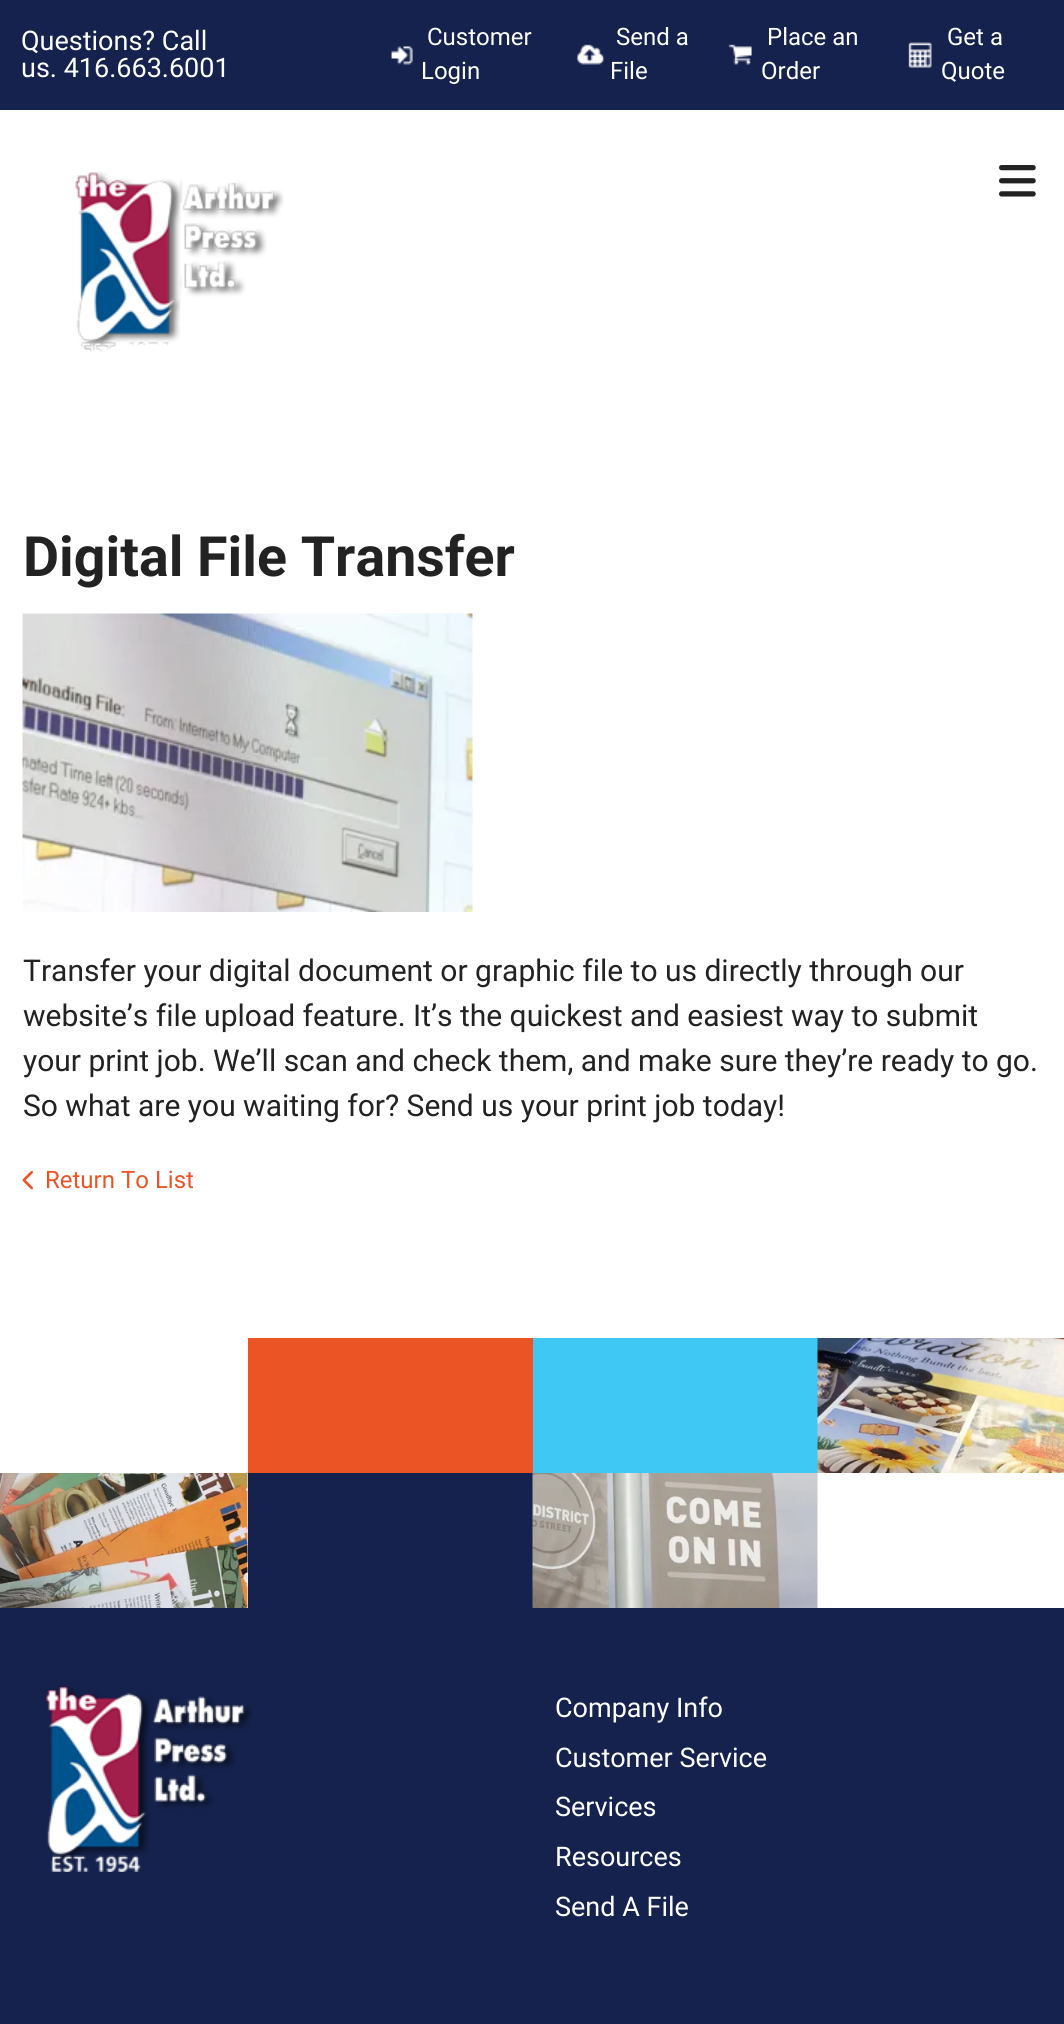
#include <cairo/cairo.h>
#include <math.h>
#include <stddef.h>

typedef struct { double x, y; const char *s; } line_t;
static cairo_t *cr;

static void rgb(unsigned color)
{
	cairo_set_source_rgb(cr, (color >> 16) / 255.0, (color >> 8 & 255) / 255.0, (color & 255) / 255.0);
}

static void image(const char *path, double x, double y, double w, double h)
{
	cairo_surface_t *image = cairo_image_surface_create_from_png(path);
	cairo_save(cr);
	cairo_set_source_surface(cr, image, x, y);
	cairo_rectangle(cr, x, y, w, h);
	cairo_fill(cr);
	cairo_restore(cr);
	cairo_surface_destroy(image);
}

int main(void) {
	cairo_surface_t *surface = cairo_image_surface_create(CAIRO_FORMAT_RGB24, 1064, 2024);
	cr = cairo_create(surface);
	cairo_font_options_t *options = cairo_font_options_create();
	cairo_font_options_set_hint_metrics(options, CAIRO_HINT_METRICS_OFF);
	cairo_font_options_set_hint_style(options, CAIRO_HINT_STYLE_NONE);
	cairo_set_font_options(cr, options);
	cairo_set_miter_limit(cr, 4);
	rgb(0xffffff);
	cairo_paint(cr);
	rgb(0x15224d);
	cairo_rectangle(cr, 0, 0, 1064, 110);
	cairo_fill(cr);
	image("img/1.png", 391, 46, 22, 19);
	image("img/2.png", 577, 44, 28, 21);
	image("img/3.png", 728, 44, 24, 21);
	image("img/4.png", 908, 42, 24, 26);
	image("img/5.png", 75, 171, 209, 181);
	image("img/6.png", 999, 165, 37, 32);
	image("img/7.png", 22, 613, 451, 299);
	image("img/8.png", 22, 1170, 11, 20);
	rgb(0xeb5526);
	cairo_rectangle(cr, 248, 1338, 285, 135);
	cairo_fill(cr);
	rgb(0x3fc8f3);
	cairo_rectangle(cr, 533, 1338, 285, 135);
	cairo_fill(cr);
	image("img/9.png", 817, 1338, 247, 135);
	image("img/10.png", 0, 1473, 248, 135);
	rgb(0x15224d);
	cairo_rectangle(cr, 248, 1473, 285, 135);
	cairo_fill(cr);
	image("img/11.png", 532, 1473, 286, 135);
	cairo_rectangle(cr, 0, 1608, 1064, 416);
	cairo_fill(cr);
	image("img/12.png", 45, 1685, 208, 187);
	cairo_select_font_face(cr, "Roboto", CAIRO_FONT_SLANT_NORMAL, CAIRO_FONT_WEIGHT_NORMAL);
	cairo_set_font_size(cr, 27);
	rgb(0xffffff);
	cairo_move_to(cr, 21, 50);
	cairo_show_text(cr, "Questions? Call");
	cairo_move_to(cr, 21, 77);
	cairo_show_text(cr, "us. 416.663.6001");
	cairo_set_font_size(cr, 24);
	{
		static const line_t items[] = {
			{427, 45, "Customer"},
			{421, 79, "Login"},
			{616, 45, "Send a"},
			{610, 79, "File"},
			{767, 45, "Place an"},
			{761, 79, "Order"},
			{947, 45, "Get a"},
			{941, 79, "Quote"},
		};
		for (size_t i = 0; i < sizeof items / sizeof *items; i++) {
			cairo_move_to(cr, items[i].x, items[i].y);
			cairo_show_text(cr, items[i].s);
		}
	}
	cairo_select_font_face(cr, "Roboto", CAIRO_FONT_SLANT_NORMAL, CAIRO_FONT_WEIGHT_BOLD);
	cairo_set_font_size(cr, 55.5);
	rgb(0x222222);
	cairo_move_to(cr, 23, 576);
	cairo_show_text(cr, "Digital File Transfer");
	cairo_select_font_face(cr, "Roboto", CAIRO_FONT_SLANT_NORMAL, CAIRO_FONT_WEIGHT_NORMAL);
	cairo_set_font_size(cr, 30);
	{
		static const line_t items[] = {
			{23, 981, "Transfer your digital document or graphic file to us directly through our"},
			{23, 1026, "website’s file upload feature. It’s the quickest and easiest way to submit"},
			{23, 1071, "your print job. We’ll scan and check them, and make sure they’re ready to go."},
			{23, 1116, "So what are you waiting for? Send us your print job today!"},
		};
		for (size_t i = 0; i < sizeof items / sizeof *items; i++) {
			cairo_move_to(cr, items[i].x, items[i].y);
			cairo_show_text(cr, items[i].s);
		}
	}
	cairo_set_font_size(cr, 24);
	rgb(0xeb5526);
	cairo_move_to(cr, 45, 1188);
	cairo_show_text(cr, "Return To List");
	cairo_set_font_size(cr, 27);
	rgb(0xffffff);
	{
		static const line_t items[] = {
			{555, 1717, "Company Info"},
			{555, 1767, "Customer Service"},
			{555, 1816, "Services"},
			{555, 1866, "Resources"},
			{555, 1916, "Send A File"},
		};
		for (size_t i = 0; i < sizeof items / sizeof *items; i++) {
			cairo_move_to(cr, items[i].x, items[i].y);
			cairo_show_text(cr, items[i].s);
		}
	}
	cairo_surface_write_to_png(surface, "page.png");
	cairo_font_options_destroy(options);
	cairo_destroy(cr);
	cairo_surface_destroy(surface);
	return 0;
}
